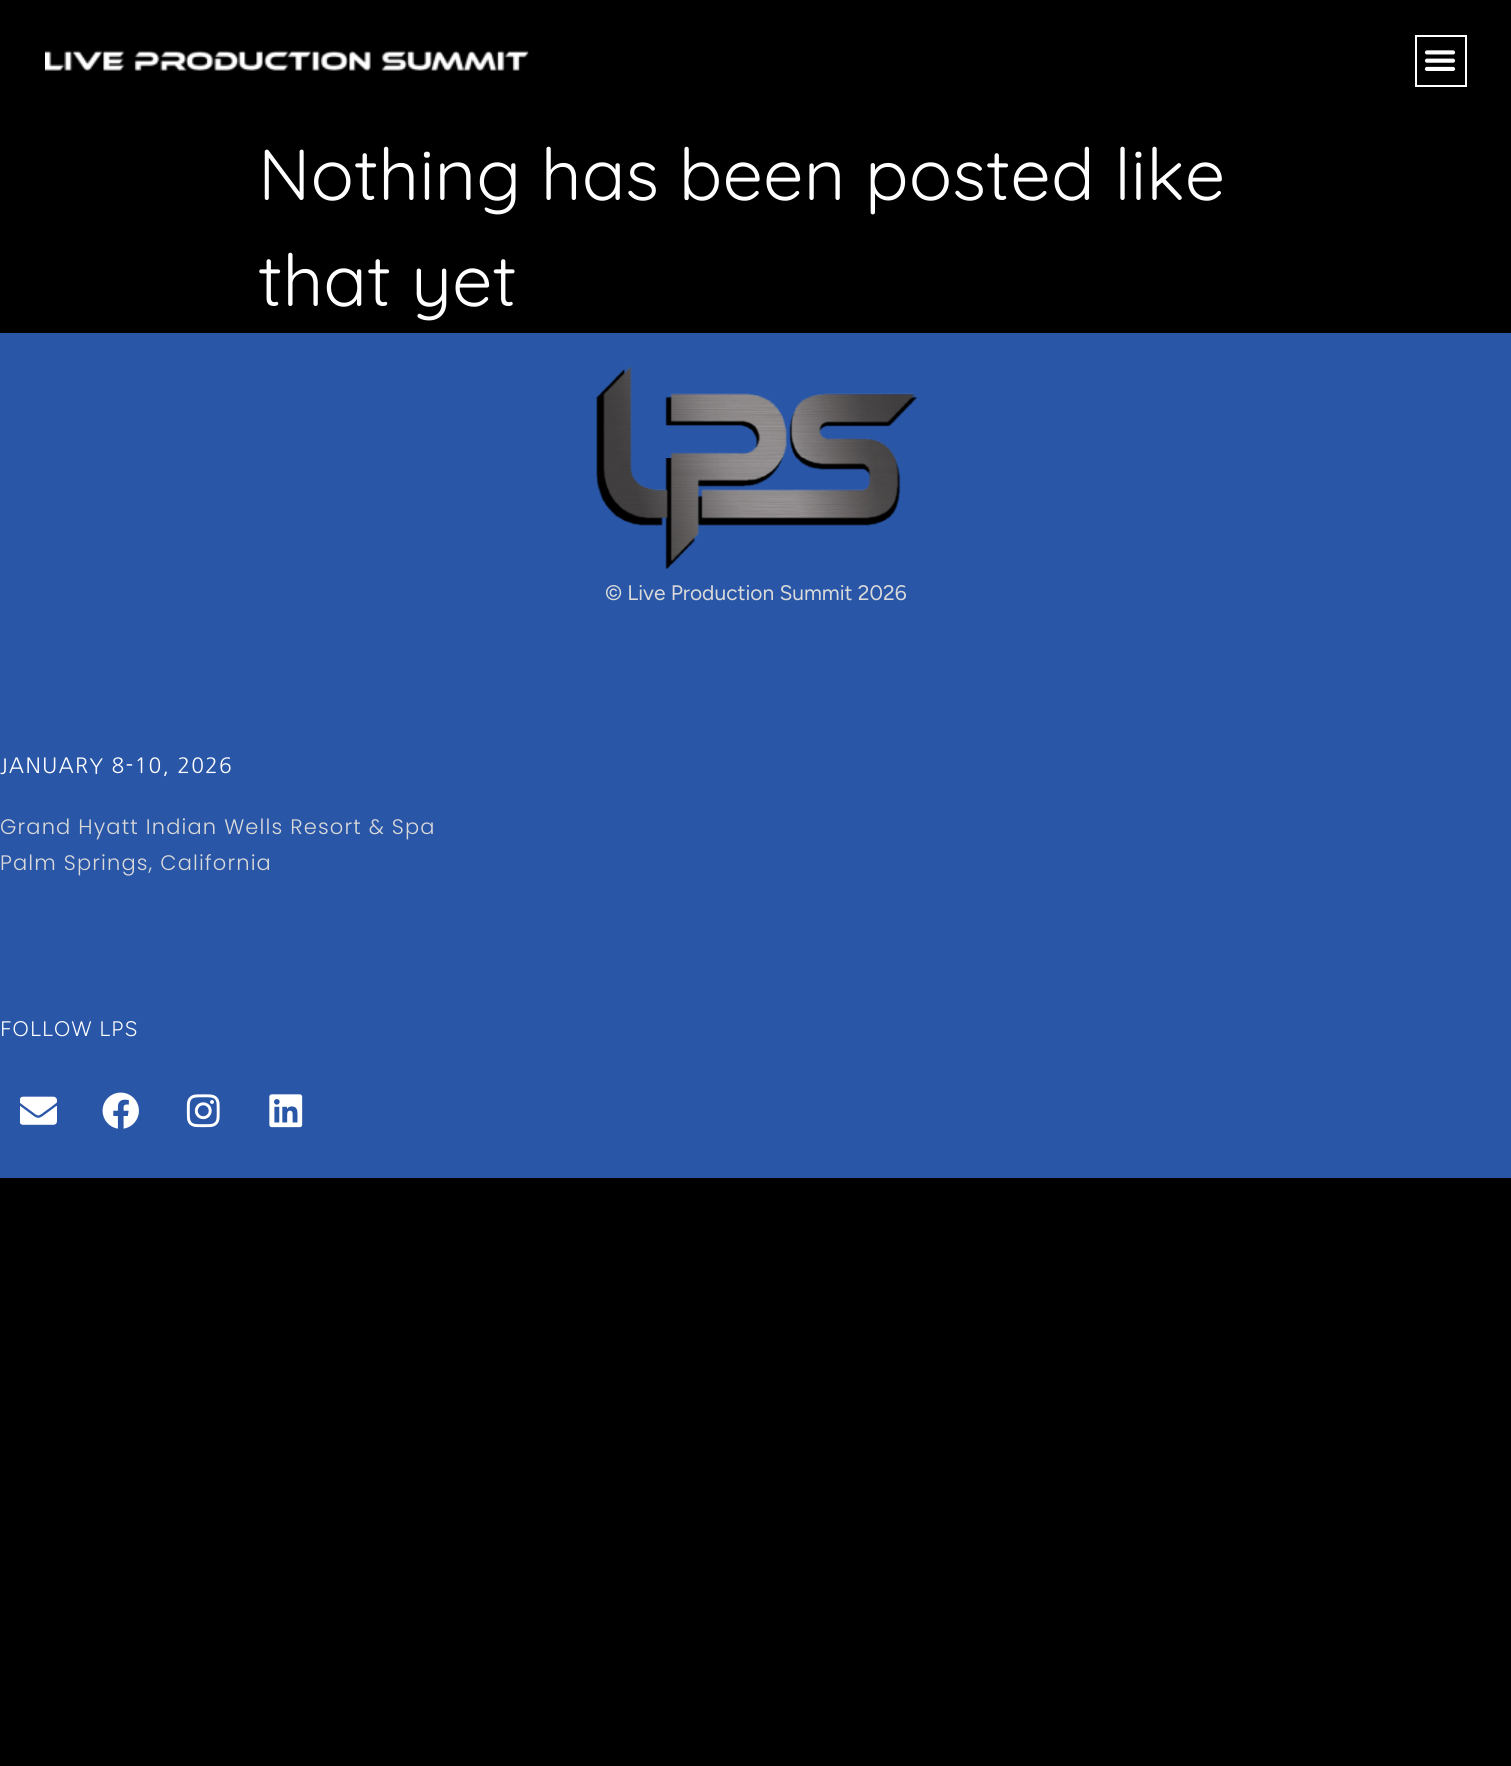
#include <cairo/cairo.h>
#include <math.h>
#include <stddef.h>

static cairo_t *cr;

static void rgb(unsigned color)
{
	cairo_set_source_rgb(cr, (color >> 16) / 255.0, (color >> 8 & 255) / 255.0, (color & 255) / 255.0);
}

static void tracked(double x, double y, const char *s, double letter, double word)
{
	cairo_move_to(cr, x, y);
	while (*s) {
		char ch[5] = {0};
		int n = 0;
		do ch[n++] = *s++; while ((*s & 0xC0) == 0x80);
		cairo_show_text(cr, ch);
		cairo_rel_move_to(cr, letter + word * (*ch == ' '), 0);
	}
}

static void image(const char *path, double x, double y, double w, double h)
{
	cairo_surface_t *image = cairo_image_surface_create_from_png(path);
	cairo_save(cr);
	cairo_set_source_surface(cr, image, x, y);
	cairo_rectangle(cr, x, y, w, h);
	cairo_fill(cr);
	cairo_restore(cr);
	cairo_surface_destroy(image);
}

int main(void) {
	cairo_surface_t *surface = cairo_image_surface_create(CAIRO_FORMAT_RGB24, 1511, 1766);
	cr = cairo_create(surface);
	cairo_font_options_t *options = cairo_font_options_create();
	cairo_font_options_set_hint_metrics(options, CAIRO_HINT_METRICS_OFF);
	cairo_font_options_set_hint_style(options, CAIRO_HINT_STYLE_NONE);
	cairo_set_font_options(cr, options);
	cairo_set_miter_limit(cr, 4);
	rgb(0x000000);
	cairo_paint(cr);
	image("img/1.png", 45, 50, 484, 21);
	cairo_rectangle(cr, 1416, 36, 50, 50);
	rgb(0xffffff);
	cairo_stroke(cr);
	image("img/2.png", 1424, 50, 32, 21);
	rgb(0x2956a6);
	cairo_rectangle(cr, 0, 333, 1511, 845);
	cairo_fill(cr);
	image("img/3.png", 596, 367, 322, 203);
	image("img/4.png", 20, 1096, 37, 29);
	image("img/5.png", 102, 1092, 37, 37);
	image("img/6.png", 186, 1094, 34, 34);
	image("img/7.png", 269, 1094, 34, 34);
	cairo_select_font_face(cr, "Quicksand", CAIRO_FONT_SLANT_NORMAL, CAIRO_FONT_WEIGHT_NORMAL);
	cairo_set_font_size(cr, 72);
	rgb(0xffffff);
	cairo_move_to(cr, 258, 200);
	cairo_show_text(cr, "Nothing has been posted like");
	cairo_move_to(cr, 258, 306);
	cairo_show_text(cr, "that yet");
	cairo_select_font_face(cr, "Figtree", CAIRO_FONT_SLANT_NORMAL, CAIRO_FONT_WEIGHT_NORMAL);
	cairo_set_font_size(cr, 21);
	rgb(0xdadada);
	cairo_move_to(cr, 605, 600);
	cairo_show_text(cr, "© Live Production Summit 2026");
	cairo_select_font_face(cr, "NanumGothic", CAIRO_FONT_SLANT_NORMAL, CAIRO_FONT_WEIGHT_NORMAL);
	rgb(0xffffff);
	tracked(0, 773, "JANUARY 8-10, 2026", 1.25, 0);
	cairo_select_font_face(cr, "Poppins Light", CAIRO_FONT_SLANT_NORMAL, CAIRO_FONT_WEIGHT_NORMAL);
	rgb(0xdadada);
	tracked(0, 834, "Grand Hyatt Indian Wells Resort & Spa", 1.15, 0);
	tracked(0, 870, "Palm Springs, California", 1.15, 0);
	cairo_select_font_face(cr, "Figtree Light", CAIRO_FONT_SLANT_NORMAL, CAIRO_FONT_WEIGHT_NORMAL);
	rgb(0xffffff);
	tracked(0, 1036, "FOLLOW LPS", 1.25, 0);
	cairo_surface_write_to_png(surface, "page.png");
	cairo_font_options_destroy(options);
	cairo_destroy(cr);
	cairo_surface_destroy(surface);
	return 0;
}
